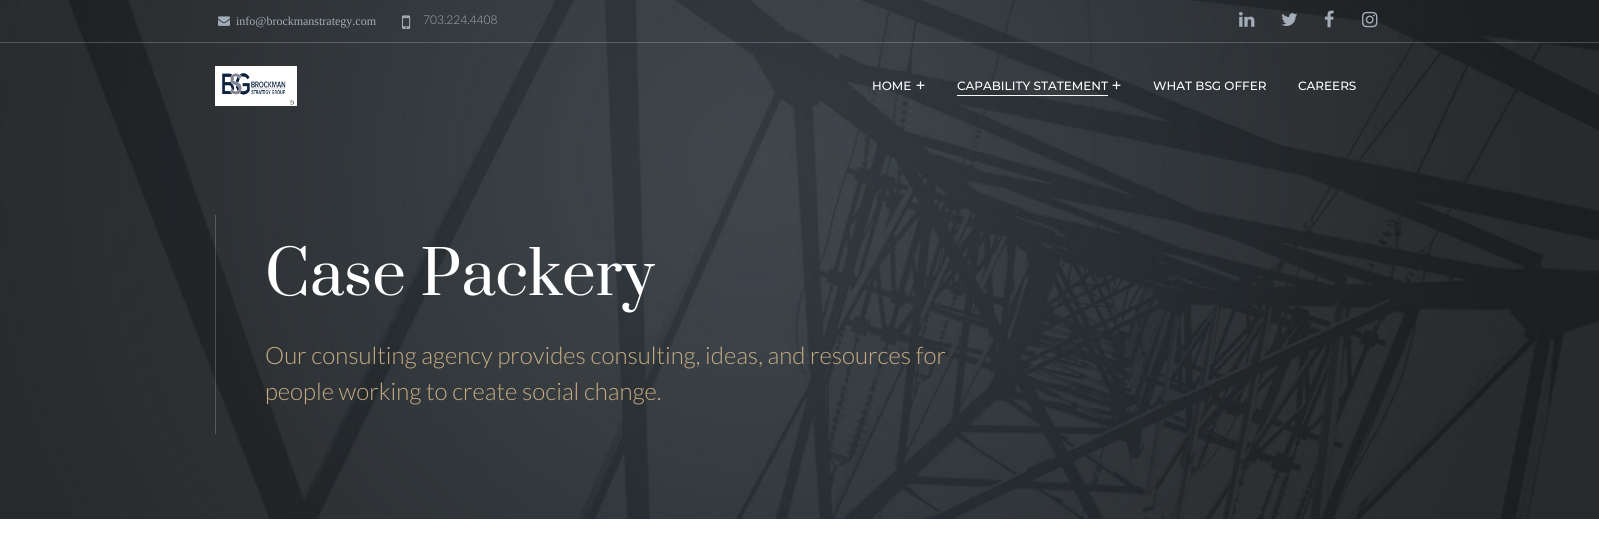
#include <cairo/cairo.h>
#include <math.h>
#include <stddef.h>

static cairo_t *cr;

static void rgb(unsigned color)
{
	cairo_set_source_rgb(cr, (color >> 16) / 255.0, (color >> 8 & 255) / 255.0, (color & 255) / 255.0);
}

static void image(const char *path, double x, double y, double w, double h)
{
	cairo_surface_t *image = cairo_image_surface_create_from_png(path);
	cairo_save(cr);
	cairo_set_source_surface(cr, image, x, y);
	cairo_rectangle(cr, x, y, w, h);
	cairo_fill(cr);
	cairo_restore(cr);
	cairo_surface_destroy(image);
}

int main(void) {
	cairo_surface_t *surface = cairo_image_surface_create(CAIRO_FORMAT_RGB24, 1599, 538);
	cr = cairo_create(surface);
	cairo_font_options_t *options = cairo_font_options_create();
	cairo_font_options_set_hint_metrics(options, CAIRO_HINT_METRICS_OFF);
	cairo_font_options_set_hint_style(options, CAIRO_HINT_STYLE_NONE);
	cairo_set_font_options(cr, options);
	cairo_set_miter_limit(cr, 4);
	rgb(0xffffff);
	cairo_paint(cr);
	image("img/8.png", 0, 0, 1599, 519);
	cairo_set_source_rgba(cr, 1, 1, 1, 0.2);
	cairo_rectangle(cr, 0, 42, 1599, 1);
	cairo_fill(cr);
	image("img/1.png", 218, 16, 12, 10);
	image("img/2.png", 402, 15, 9, 14);
	image("img/3.png", 1239, 12, 16, 15);
	image("img/4.png", 1281, 13, 17, 13);
	image("img/5.png", 1324, 10, 10, 18);
	image("img/6.png", 1362, 11, 16, 17);
	image("img/7.png", 215, 66, 82, 40);
	rgb(0xffffff);
	cairo_rectangle(cr, 957, 95, 151, 1);
	cairo_fill(cr);
	cairo_set_source_rgba(cr, 1, 1, 1, 0.2);
	cairo_rectangle(cr, 215, 215, 1, 219);
	cairo_fill(cr);
	cairo_select_font_face(cr, "Liberation Serif", CAIRO_FONT_SLANT_NORMAL, CAIRO_FONT_WEIGHT_NORMAL);
	cairo_set_font_size(cr, 12);
	rgb(0xa3adb8);
	cairo_move_to(cr, 236, 25);
	cairo_show_text(cr, "info@brockmanstrategy.com");
	cairo_select_font_face(cr, "Lato Light", CAIRO_FONT_SLANT_NORMAL, CAIRO_FONT_WEIGHT_NORMAL);
	cairo_move_to(cr, 423, 24);
	cairo_show_text(cr, "703.224.4408");
	cairo_select_font_face(cr, "Montserrat Medium", CAIRO_FONT_SLANT_NORMAL, CAIRO_FONT_WEIGHT_NORMAL);
	rgb(0xffffff);
	cairo_move_to(cr, 872, 90);
	cairo_show_text(cr, "HOME");
	cairo_select_font_face(cr, "DejaVu Sans Mono", CAIRO_FONT_SLANT_NORMAL, CAIRO_FONT_WEIGHT_NORMAL);
	cairo_set_font_size(cr, 15);
	cairo_move_to(cr, 916, 90);
	cairo_show_text(cr, "+");
	cairo_select_font_face(cr, "Montserrat Medium", CAIRO_FONT_SLANT_NORMAL, CAIRO_FONT_WEIGHT_NORMAL);
	cairo_set_font_size(cr, 12);
	cairo_move_to(cr, 957, 90);
	cairo_show_text(cr, "CAPABILITY STATEMENT");
	cairo_select_font_face(cr, "DejaVu Sans Mono", CAIRO_FONT_SLANT_NORMAL, CAIRO_FONT_WEIGHT_NORMAL);
	cairo_set_font_size(cr, 15);
	cairo_move_to(cr, 1112, 90);
	cairo_show_text(cr, "+");
	cairo_select_font_face(cr, "Montserrat Medium", CAIRO_FONT_SLANT_NORMAL, CAIRO_FONT_WEIGHT_NORMAL);
	cairo_set_font_size(cr, 12);
	cairo_move_to(cr, 1153, 90);
	cairo_show_text(cr, "WHAT BSG OFFER");
	cairo_move_to(cr, 1298, 90);
	cairo_show_text(cr, "CAREERS");
	cairo_select_font_face(cr, "Prata", CAIRO_FONT_SLANT_NORMAL, CAIRO_FONT_WEIGHT_NORMAL);
	cairo_set_font_size(cr, 60);
	cairo_move_to(cr, 265, 295);
	cairo_show_text(cr, "Case Packery");
	cairo_select_font_face(cr, "Lato Light", CAIRO_FONT_SLANT_NORMAL, CAIRO_FONT_WEIGHT_NORMAL);
	cairo_set_font_size(cr, 24);
	rgb(0xc6ac83);
	cairo_move_to(cr, 265, 364);
	cairo_show_text(cr, "Our consulting agency provides consulting, ideas, and resources for");
	cairo_move_to(cr, 265, 400);
	cairo_show_text(cr, "people working to create social change.");
	cairo_surface_write_to_png(surface, "page.png");
	cairo_font_options_destroy(options);
	cairo_destroy(cr);
	cairo_surface_destroy(surface);
	return 0;
}
